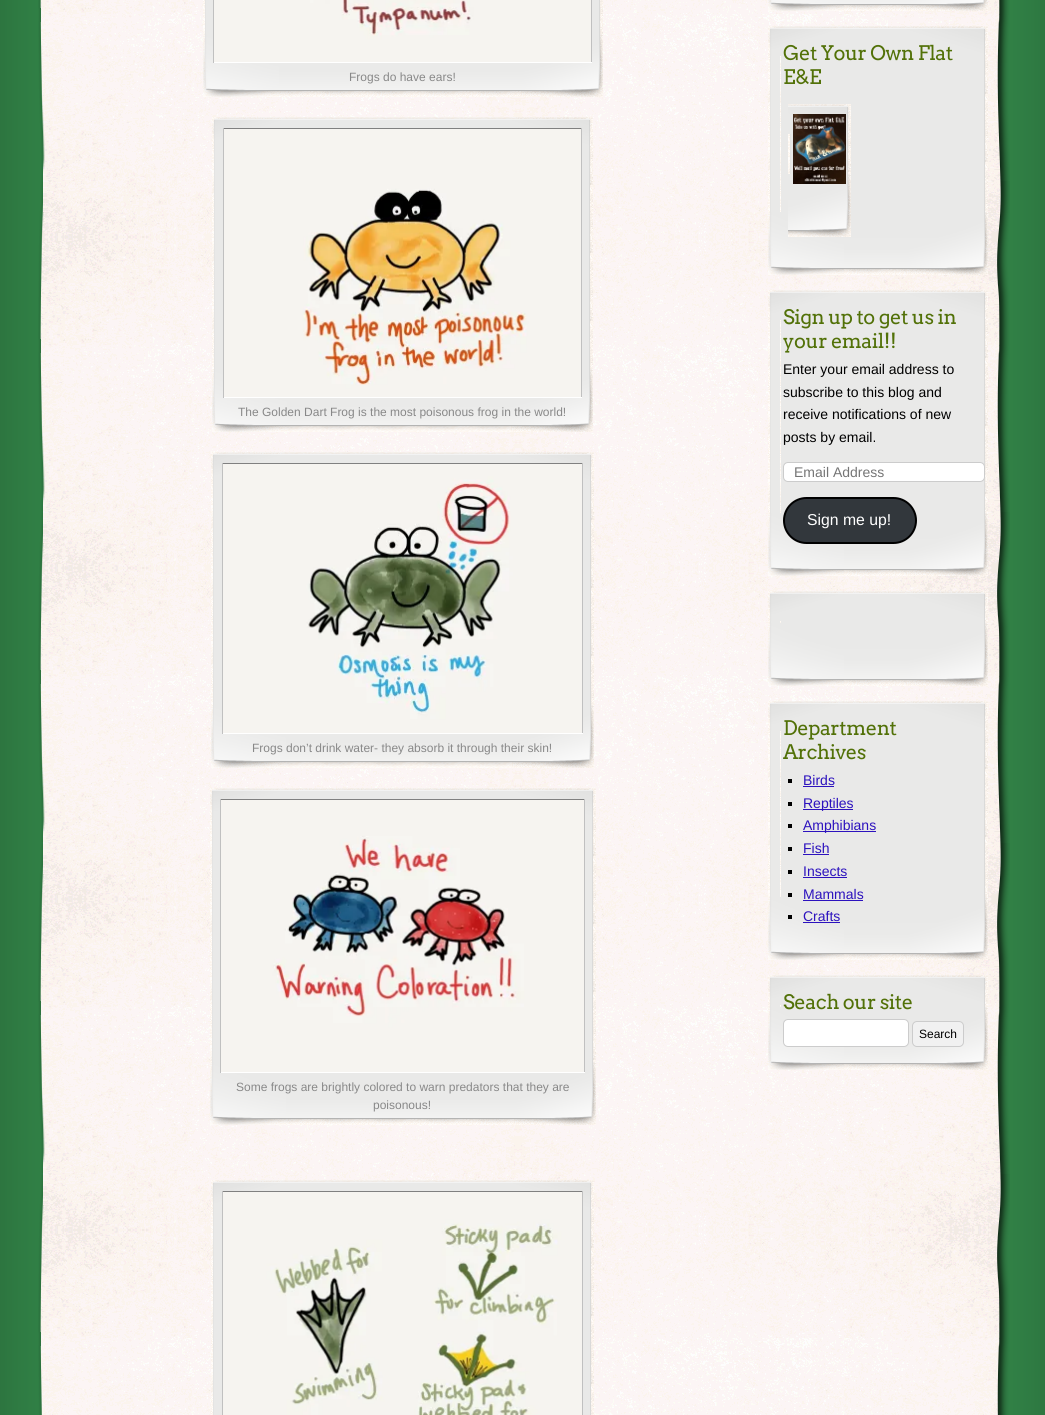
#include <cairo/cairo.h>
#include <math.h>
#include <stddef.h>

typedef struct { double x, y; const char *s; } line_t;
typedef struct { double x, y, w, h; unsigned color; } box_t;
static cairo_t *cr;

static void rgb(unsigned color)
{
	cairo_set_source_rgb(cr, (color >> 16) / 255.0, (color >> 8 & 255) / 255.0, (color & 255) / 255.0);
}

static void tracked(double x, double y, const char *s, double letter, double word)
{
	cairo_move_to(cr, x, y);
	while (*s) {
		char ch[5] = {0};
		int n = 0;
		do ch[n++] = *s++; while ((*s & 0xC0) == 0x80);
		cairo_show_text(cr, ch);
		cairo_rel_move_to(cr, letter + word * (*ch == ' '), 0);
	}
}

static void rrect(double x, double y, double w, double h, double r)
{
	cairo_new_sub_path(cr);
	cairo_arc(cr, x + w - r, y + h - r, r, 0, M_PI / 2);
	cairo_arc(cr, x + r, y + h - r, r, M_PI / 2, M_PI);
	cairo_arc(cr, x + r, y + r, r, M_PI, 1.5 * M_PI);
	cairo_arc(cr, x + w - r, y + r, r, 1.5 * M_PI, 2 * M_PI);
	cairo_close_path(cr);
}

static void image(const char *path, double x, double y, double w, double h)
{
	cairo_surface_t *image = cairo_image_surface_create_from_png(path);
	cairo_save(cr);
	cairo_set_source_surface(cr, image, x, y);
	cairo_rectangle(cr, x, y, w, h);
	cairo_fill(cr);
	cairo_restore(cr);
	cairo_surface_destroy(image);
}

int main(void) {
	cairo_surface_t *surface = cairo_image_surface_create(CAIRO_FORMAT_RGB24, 1045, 1415);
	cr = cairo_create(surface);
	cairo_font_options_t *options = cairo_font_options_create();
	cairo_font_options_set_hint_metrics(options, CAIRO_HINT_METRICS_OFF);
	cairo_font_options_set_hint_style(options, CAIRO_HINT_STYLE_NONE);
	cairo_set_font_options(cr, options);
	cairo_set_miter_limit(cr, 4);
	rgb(0x318146);
	cairo_paint(cr);
	image("img/1.png", 0, 0, 1045, 1415);
	image("img/2.png", 38, 0, 972, 1415);
	image("img/3.png", 203, 0, 400, 97);
	{
		static const box_t items[] = {
			{591, 0, 1, 63, 0xc0c0c0},
			{213, 62, 379, 1, 0xffffff},
			{213, 0, 1, 63, 0xc0c0c0},
		};
		for (size_t i = 0; i < sizeof items / sizeof *items; i++) {
			rgb(items[i].color);
			cairo_rectangle(cr, items[i].x, items[i].y, items[i].w, items[i].h);
			cairo_fill(cr);
		}
	}
	image("img/4.png", 214, 0, 377, 62);
	image("img/5.png", 212, 117, 381, 315);
	{
		static const box_t items[] = {
			{223, 128, 359, 1, 0x808080},
			{581, 128, 1, 270, 0xc0c0c0},
			{223, 397, 359, 1, 0xffffff},
			{223, 128, 1, 270, 0xc0c0c0},
		};
		for (size_t i = 0; i < sizeof items / sizeof *items; i++) {
			rgb(items[i].color);
			cairo_rectangle(cr, items[i].x, items[i].y, items[i].w, items[i].h);
			cairo_fill(cr);
		}
	}
	image("img/6.png", 224, 129, 357, 268);
	image("img/7.png", 211, 452, 383, 316);
	{
		static const box_t items[] = {
			{222, 463, 361, 1, 0x808080},
			{582, 463, 1, 271, 0xc0c0c0},
			{222, 733, 361, 1, 0xffffff},
			{222, 463, 1, 271, 0xc0c0c0},
		};
		for (size_t i = 0; i < sizeof items / sizeof *items; i++) {
			rgb(items[i].color);
			cairo_rectangle(cr, items[i].x, items[i].y, items[i].w, items[i].h);
			cairo_fill(cr);
		}
	}
	image("img/8.png", 223, 464, 359, 269);
	image("img/9.png", 210, 788, 386, 337);
	{
		static const box_t items[] = {
			{220, 799, 365, 1, 0x808080},
			{584, 799, 1, 274, 0xc0c0c0},
			{220, 1072, 365, 1, 0xffffff},
			{220, 799, 1, 274, 0xc0c0c0},
		};
		for (size_t i = 0; i < sizeof items / sizeof *items; i++) {
			rgb(items[i].color);
			cairo_rectangle(cr, items[i].x, items[i].y, items[i].w, items[i].h);
			cairo_fill(cr);
		}
	}
	image("img/10.png", 221, 800, 363, 272);
	image("img/11.png", 211, 1180, 383, 235);
	{
		static const box_t items[] = {
			{222, 1191, 361, 1, 0x808080},
			{582, 1191, 1, 224, 0xc0c0c0},
			{222, 1191, 1, 224, 0xc0c0c0},
		};
		for (size_t i = 0; i < sizeof items / sizeof *items; i++) {
			rgb(items[i].color);
			cairo_rectangle(cr, items[i].x, items[i].y, items[i].w, items[i].h);
			cairo_fill(cr);
		}
	}
	image("img/12.png", 223, 1192, 359, 223);
	image("img/13.png", 768, 0, 220, 11);
	rgb(0xe9e9e8);
	cairo_rectangle(cr, 781, 56, 195, 156);
	cairo_fill(cr);
	image("img/14.png", 768, 26, 220, 249);
	image("img/15.png", 788, 104, 63, 133);
	image("img/16.png", 793, 114, 53, 70);
	cairo_rectangle(cr, 781, 320, 195, 193);
	cairo_fill(cr);
	image("img/17.png", 768, 290, 220, 286);
	rgb(0xffffff);
	rrect(783.5, 462.5, 201, 19, 4.5);
	cairo_fill_preserve(cr);
	rgb(0xcccccc);
	cairo_set_line_width(cr, 1);
	cairo_stroke(cr);
	rgb(0x32373c);
	rrect(784, 498, 132, 45, 22.5);
	cairo_fill_preserve(cr);
	rgb(0x000000);
	cairo_set_line_width(cr, 2);
	cairo_stroke(cr);
	rgb(0xe9e9e8);
	cairo_rectangle(cr, 781, 621, 195, 2);
	cairo_fill(cr);
	image("img/18.png", 768, 591, 220, 95);
	cairo_rectangle(cr, 781, 731, 195, 166);
	cairo_fill(cr);
	image("img/19.png", 768, 701, 220, 259);
	{
		static const box_t items[] = {
			{788, 779, 4, 4, 0x000000},
			{803, 786, 31, 1, 0x2c12be},
			{788, 802, 4, 4, 0x000000},
			{803, 809, 50, 1, 0x2c12be},
			{788, 824, 4, 4, 0x000000},
			{803, 831, 73, 1, 0x2c12be},
			{788, 847, 4, 4, 0x000000},
			{803, 854, 26, 1, 0x2c12be},
			{788, 870, 4, 4, 0x000000},
			{803, 877, 44, 1, 0x2c12be},
			{788, 893, 4, 4, 0x000000},
			{803, 900, 60, 1, 0x2c12be},
			{788, 915, 4, 4, 0x000000},
			{803, 922, 37, 1, 0x2c12be},
			{781, 1005, 195, 2, 0xe9e9e8},
		};
		for (size_t i = 0; i < sizeof items / sizeof *items; i++) {
			rgb(items[i].color);
			cairo_rectangle(cr, items[i].x, items[i].y, items[i].w, items[i].h);
			cairo_fill(cr);
		}
	}
	image("img/18.png", 768, 975, 220, 95);
	rgb(0xffffff);
	rrect(783.5, 1019.5, 125, 27, 4.5);
	cairo_fill_preserve(cr);
	rgb(0xcccccc);
	cairo_set_line_width(cr, 1);
	cairo_stroke(cr);
	rgb(0xf1f1f1);
	rrect(912.5, 1021.5, 51, 25, 4.5);
	cairo_fill_preserve(cr);
	rgb(0xcccccc);
	cairo_stroke(cr);
	cairo_select_font_face(cr, "Liberation Sans", CAIRO_FONT_SLANT_NORMAL, CAIRO_FONT_WEIGHT_NORMAL);
	cairo_set_font_size(cr, 12);
	rgb(0x888888);
	{
		static const line_t items[] = {
			{349, 81, "Frogs do have ears!"},
			{238, 416, "The Golden Dart Frog is the most poisonous frog in the world!"},
			{252, 752, "Frogs don’t drink water- they absorb it through their skin!"},
			{236, 1091, "Some frogs are brightly colored to warn predators that they are"},
			{373, 1109, "poisonous!"},
		};
		for (size_t i = 0; i < sizeof items / sizeof *items; i++) {
			cairo_move_to(cr, items[i].x, items[i].y);
			cairo_show_text(cr, items[i].s);
		}
	}
	cairo_select_font_face(cr, "Arvo", CAIRO_FONT_SLANT_NORMAL, CAIRO_FONT_WEIGHT_NORMAL);
	cairo_set_font_size(cr, 20);
	rgb(0x527108);
	{
		static const line_t items[] = {
			{783, 60, "Get Your Own Flat"},
			{783, 84, "E&E"},
			{783, 324, "Sign up to get us in"},
			{783, 348, "your email!!"},
		};
		for (size_t i = 0; i < sizeof items / sizeof *items; i++) {
			tracked(items[i].x, items[i].y, items[i].s, -0.5, 0);
		}
	}
	cairo_select_font_face(cr, "Liberation Sans", CAIRO_FONT_SLANT_NORMAL, CAIRO_FONT_WEIGHT_NORMAL);
	cairo_set_font_size(cr, 14);
	rgb(0x000000);
	{
		static const line_t items[] = {
			{783, 374, "Enter your email address to"},
			{783, 397, "subscribe to this blog and"},
			{783, 419, "receive notifications of new"},
			{783, 442, "posts by email."},
		};
		for (size_t i = 0; i < sizeof items / sizeof *items; i++) {
			cairo_move_to(cr, items[i].x, items[i].y);
			cairo_show_text(cr, items[i].s);
		}
	}
	rgb(0x757575);
	cairo_move_to(cr, 794, 477);
	cairo_show_text(cr, "Email Address");
	cairo_set_font_size(cr, 15.75);
	rgb(0xffffff);
	cairo_move_to(cr, 807, 525);
	cairo_show_text(cr, "Sign me up!");
	cairo_select_font_face(cr, "Arvo", CAIRO_FONT_SLANT_NORMAL, CAIRO_FONT_WEIGHT_NORMAL);
	cairo_set_font_size(cr, 20);
	rgb(0x527108);
	tracked(783, 735, "Department", -0.5, 0);
	tracked(783, 759, "Archives", -0.5, 0);
	cairo_select_font_face(cr, "Liberation Sans", CAIRO_FONT_SLANT_NORMAL, CAIRO_FONT_WEIGHT_NORMAL);
	cairo_set_font_size(cr, 14);
	rgb(0x2c12be);
	{
		static const line_t items[] = {
			{803, 785, "Birds"},
			{803, 808, "Reptiles"},
			{803, 830, "Amphibians"},
			{803, 853, "Fish"},
			{803, 876, "Insects"},
			{803, 899, "Mammals"},
			{803, 921, "Crafts"},
		};
		for (size_t i = 0; i < sizeof items / sizeof *items; i++) {
			cairo_move_to(cr, items[i].x, items[i].y);
			cairo_show_text(cr, items[i].s);
		}
	}
	cairo_select_font_face(cr, "Arvo", CAIRO_FONT_SLANT_NORMAL, CAIRO_FONT_WEIGHT_NORMAL);
	cairo_set_font_size(cr, 20);
	rgb(0x527108);
	tracked(783, 1009, "Seach our site", -0.5, 0);
	cairo_select_font_face(cr, "Liberation Sans", CAIRO_FONT_SLANT_NORMAL, CAIRO_FONT_WEIGHT_NORMAL);
	cairo_set_font_size(cr, 12);
	rgb(0x000000);
	cairo_move_to(cr, 919, 1038);
	cairo_show_text(cr, "Search");
	cairo_surface_write_to_png(surface, "page.png");
	cairo_font_options_destroy(options);
	cairo_destroy(cr);
	cairo_surface_destroy(surface);
	return 0;
}
